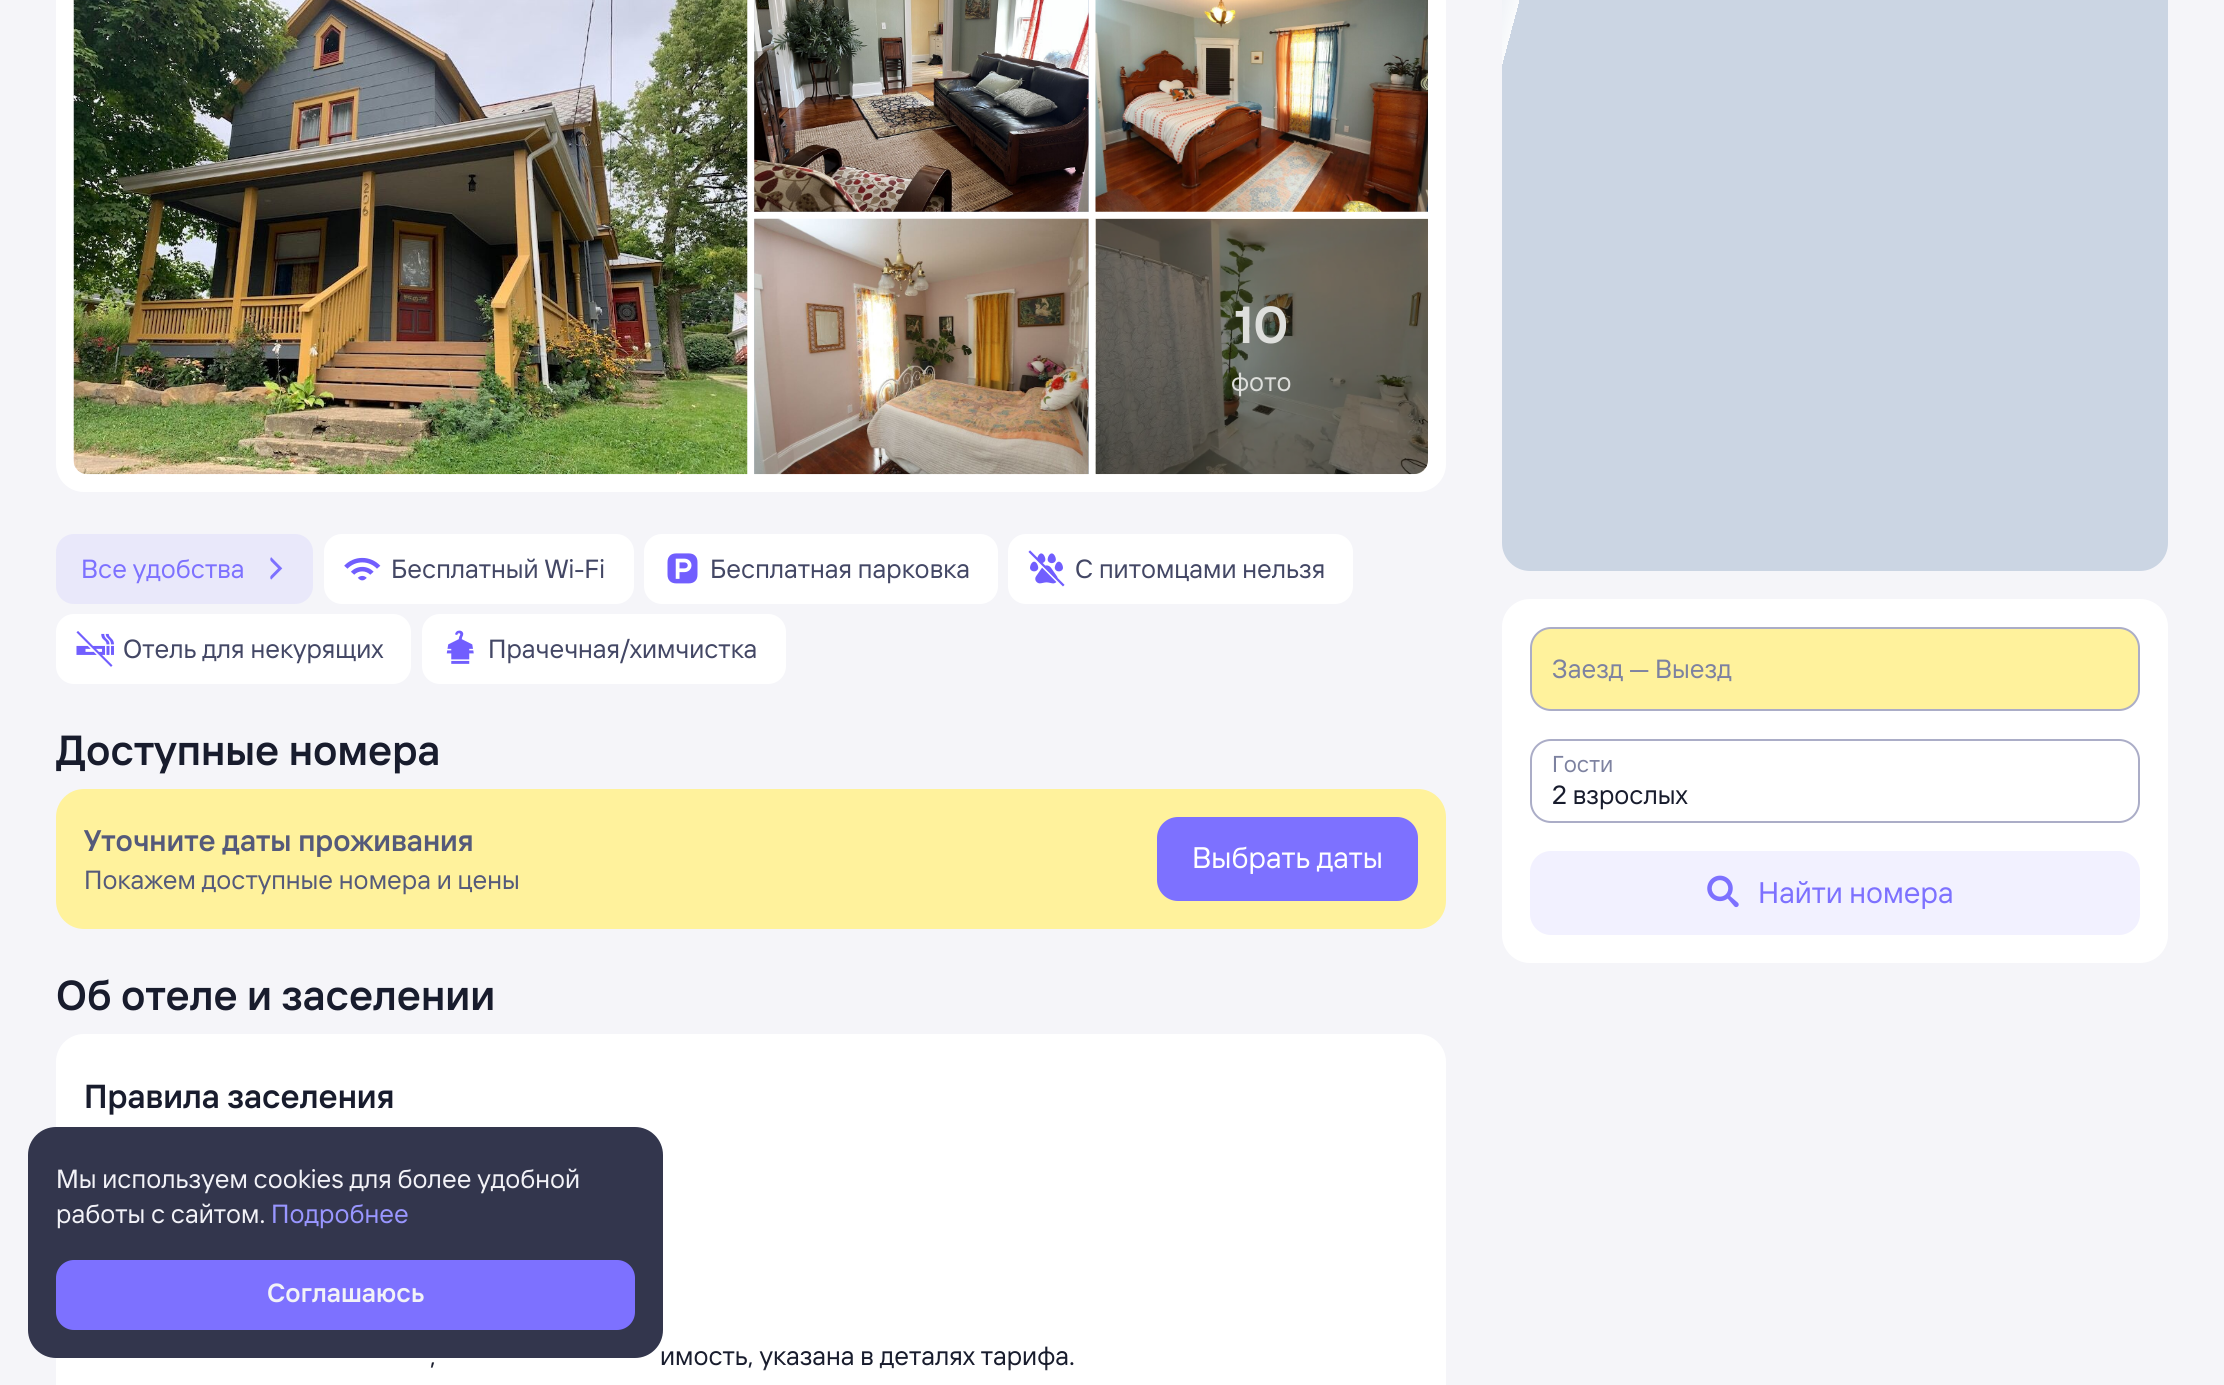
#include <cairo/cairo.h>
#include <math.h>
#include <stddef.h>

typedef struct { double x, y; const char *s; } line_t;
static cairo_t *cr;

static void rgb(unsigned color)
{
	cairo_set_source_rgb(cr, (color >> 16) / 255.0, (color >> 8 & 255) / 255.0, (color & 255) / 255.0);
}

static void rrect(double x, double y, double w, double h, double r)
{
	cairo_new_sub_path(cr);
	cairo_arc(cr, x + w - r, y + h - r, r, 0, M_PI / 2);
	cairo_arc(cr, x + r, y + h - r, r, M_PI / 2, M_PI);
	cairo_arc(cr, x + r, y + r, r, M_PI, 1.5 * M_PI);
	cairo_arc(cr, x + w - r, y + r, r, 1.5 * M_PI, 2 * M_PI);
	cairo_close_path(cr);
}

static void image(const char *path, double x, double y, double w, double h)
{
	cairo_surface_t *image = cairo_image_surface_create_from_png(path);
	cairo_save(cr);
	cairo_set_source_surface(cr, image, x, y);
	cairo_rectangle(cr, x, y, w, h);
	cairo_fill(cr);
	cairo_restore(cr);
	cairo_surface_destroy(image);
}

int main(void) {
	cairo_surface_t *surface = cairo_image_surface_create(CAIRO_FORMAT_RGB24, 2224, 1385);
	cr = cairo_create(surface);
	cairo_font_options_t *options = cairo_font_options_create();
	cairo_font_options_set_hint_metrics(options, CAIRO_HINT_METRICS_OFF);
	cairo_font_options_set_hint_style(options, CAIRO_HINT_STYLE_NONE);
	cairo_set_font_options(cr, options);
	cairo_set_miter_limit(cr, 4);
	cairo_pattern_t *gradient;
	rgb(0xf5f5f9);
	cairo_paint(cr);
	rgb(0xffffff);
	rrect(56, -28, 1390, 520, 28);
	cairo_fill(cr);
	image("img/1.png", 73, 0, 675, 475);
	rgb(0xc3cfdf);
	cairo_rectangle(cr, 754, 0, 335, 212);
	cairo_fill(cr);
	image("img/2.png", 754, 0, 335, 212);
	image("img/3.png", 1095, 0, 333, 212);
	cairo_rectangle(cr, 754, 219, 335, 255);
	cairo_fill(cr);
	image("img/4.png", 754, 218, 335, 257);
	image("img/5.png", 1095, 218, 333, 257);
	cairo_set_source_rgba(cr, 0, 0, 0, 0.5);
	cairo_new_path(cr);
	cairo_move_to(cr, 1096, 219);
	cairo_line_to(cr, 1428, 219);
	cairo_line_to(cr, 1428, 460);
	cairo_curve_to(cr, 1428, 467.5, 1421.5, 474, 1414, 474);
	cairo_line_to(cr, 1096, 474);
	cairo_close_path(cr);
	cairo_fill(cr);
	rgb(0xe9e8fa);
	rrect(56, 534, 257, 70, 18);
	cairo_fill(cr);
	image("img/6.png", 270, 557, 13, 23);
	rgb(0xffffff);
	rrect(324, 534, 310, 70, 18);
	cairo_fill(cr);
	image("img/7.png", 344, 557, 37, 24);
	rrect(644, 534, 354, 70, 18);
	cairo_fill(cr);
	image("img/8.png", 667, 553, 31, 31);
	rrect(1008, 534, 345, 70, 18);
	cairo_fill(cr);
	image("img/9.png", 1028, 550, 37, 37);
	rrect(56, 614, 355, 70, 18);
	cairo_fill(cr);
	image("img/10.png", 76, 631, 38, 36);
	rrect(422, 614, 364, 70, 18);
	cairo_fill(cr);
	image("img/11.png", 446, 630, 28, 34);
	rgb(0xfff29c);
	rrect(56, 789, 1390, 140, 28);
	cairo_fill(cr);
	rgb(0x7d71ff);
	rrect(1157, 817, 261, 84, 21);
	cairo_fill(cr);
	rgb(0xffffff);
	rrect(56, 1034, 1390, 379, 28);
	cairo_fill(cr);
	rgb(0xcbd5e3);
	rrect(1502, -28, 666, 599, 28);
	cairo_fill(cr);
	gradient = cairo_pattern_create_linear(1145, 150, 1925, 359);
	cairo_pattern_add_color_stop_rgba(gradient, 0.3, 1, 1, 1, 0);
	cairo_pattern_add_color_stop_rgba(gradient, 0.4, 1, 1, 1, 0.9);
	cairo_pattern_add_color_stop_rgba(gradient, 0.4, 1, 1, 1, 0);
	cairo_set_source(cr, gradient);
	cairo_pattern_destroy(gradient);
	cairo_rectangle(cr, 1502, 0, 17, 64);
	cairo_fill(cr);
	rgb(0xffffff);
	rrect(1502, 599, 666, 364, 28);
	cairo_fill(cr);
	rgb(0xfff29c);
	rrect(1531, 628, 608, 82, 20);
	cairo_fill_preserve(cr);
	rgb(0xabadc7);
	cairo_stroke(cr);
	rrect(1531, 740, 608, 82, 20);
	cairo_stroke(cr);
	rgb(0xf2f1ff);
	rrect(1530, 851, 610, 84, 21);
	cairo_fill(cr);
	image("img/12.png", 1707, 875, 32, 33);
	cairo_select_font_face(cr, "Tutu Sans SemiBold", CAIRO_FONT_SLANT_NORMAL, CAIRO_FONT_WEIGHT_NORMAL);
	cairo_set_font_size(cr, 52);
	rgb(0xdedfdc);
	cairo_move_to(cr, 1234, 343);
	cairo_show_text(cr, "10");
	cairo_select_font_face(cr, "Tutu Sans", CAIRO_FONT_SLANT_NORMAL, CAIRO_FONT_WEIGHT_NORMAL);
	cairo_set_font_size(cr, 26.25);
	cairo_move_to(cr, 1231, 391);
	cairo_show_text(cr, "фото");
	rgb(0x7d71ff);
	cairo_move_to(cr, 81, 578);
	cairo_show_text(cr, "Все удобства");
	rgb(0x434765);
	{
		static const line_t items[] = {
			{391, 578, "Бесплатный Wi-Fi"},
			{710, 578, "Бесплатная парковка"},
			{1075, 578, "С питомцами нельзя"},
			{123, 658, "Отель для некурящих"},
			{488, 658, "Прачечная/химчистка"},
		};
		for (size_t i = 0; i < sizeof items / sizeof *items; i++) {
			cairo_move_to(cr, items[i].x, items[i].y);
			cairo_show_text(cr, items[i].s);
		}
	}
	cairo_select_font_face(cr, "Tutu Sans SemiBold", CAIRO_FONT_SLANT_NORMAL, CAIRO_FONT_WEIGHT_NORMAL);
	cairo_set_font_size(cr, 42);
	rgb(0x181c2d);
	cairo_move_to(cr, 56, 765);
	cairo_show_text(cr, "Доступные номера");
	cairo_set_font_size(cr, 29.75);
	rgb(0x555a7a);
	cairo_move_to(cr, 84, 851);
	cairo_show_text(cr, "Уточните даты проживания");
	cairo_select_font_face(cr, "Tutu Sans", CAIRO_FONT_SLANT_NORMAL, CAIRO_FONT_WEIGHT_NORMAL);
	cairo_set_font_size(cr, 26.25);
	cairo_move_to(cr, 84, 889);
	cairo_show_text(cr, "Покажем доступные номера и цены");
	cairo_set_font_size(cr, 29.75);
	rgb(0xffffff);
	cairo_move_to(cr, 1192, 868);
	cairo_show_text(cr, "Выбрать даты");
	cairo_select_font_face(cr, "Tutu Sans SemiBold", CAIRO_FONT_SLANT_NORMAL, CAIRO_FONT_WEIGHT_NORMAL);
	cairo_set_font_size(cr, 42);
	rgb(0x181c2d);
	cairo_move_to(cr, 56, 1010);
	cairo_show_text(cr, "Об отеле и заселении");
	cairo_set_font_size(cr, 33.25);
	cairo_move_to(cr, 84, 1108);
	cairo_show_text(cr, "Правила заселения");
	cairo_select_font_face(cr, "Tutu Sans", CAIRO_FONT_SLANT_NORMAL, CAIRO_FONT_WEIGHT_NORMAL);
	cairo_set_font_size(cr, 26.25);
	cairo_move_to(cr, 430, 1365);
	cairo_show_text(cr, ",");
	cairo_move_to(cr, 660, 1365);
	cairo_show_text(cr, "имость, указана в деталях тарифа.");
	gradient = cairo_pattern_create_linear(751, 1363, 751, 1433);
	cairo_pattern_add_color_stop_rgba(gradient, 0, 1, 1, 1, 0);
	cairo_pattern_add_color_stop_rgba(gradient, 1, 1, 1, 1, 1);
	cairo_set_source(cr, gradient);
	cairo_pattern_destroy(gradient);
	cairo_rectangle(cr, 431, 1365, 617, 6);
	cairo_fill(cr);
	rgb(0x7d82a0);
	cairo_move_to(cr, 1552, 678);
	cairo_show_text(cr, "Заезд — Выезд");
	cairo_set_font_size(cr, 23);
	cairo_move_to(cr, 1552, 772);
	cairo_show_text(cr, "Гости");
	cairo_set_font_size(cr, 26.25);
	rgb(0x181c2d);
	cairo_move_to(cr, 1552, 804);
	cairo_show_text(cr, "2 взрослых");
	cairo_set_font_size(cr, 29.75);
	rgb(0x7d71ff);
	cairo_move_to(cr, 1758, 903);
	cairo_show_text(cr, "Найти номера");
	rgb(0x33364d);
	rrect(28, 1127, 635, 231, 28);
	cairo_fill(cr);
	cairo_set_font_size(cr, 26.25);
	rgb(0xf2f2f7);
	cairo_move_to(cr, 56, 1188);
	cairo_show_text(cr, "Мы используем cookies для более удобной");
	cairo_move_to(cr, 56, 1223);
	cairo_show_text(cr, "работы с сайтом.");
	rgb(0x9996ff);
	cairo_move_to(cr, 271, 1223);
	cairo_show_text(cr, "Подробнее");
	rgb(0x7d71ff);
	rrect(56, 1260, 579, 70, 18);
	cairo_fill(cr);
	cairo_select_font_face(cr, "Tutu Sans SemiBold", CAIRO_FONT_SLANT_NORMAL, CAIRO_FONT_WEIGHT_NORMAL);
	rgb(0xf2f2f7);
	cairo_move_to(cr, 267, 1302);
	cairo_show_text(cr, "Соглашаюсь");
	cairo_surface_write_to_png(surface, "page.png");
	cairo_font_options_destroy(options);
	cairo_destroy(cr);
	cairo_surface_destroy(surface);
	return 0;
}
